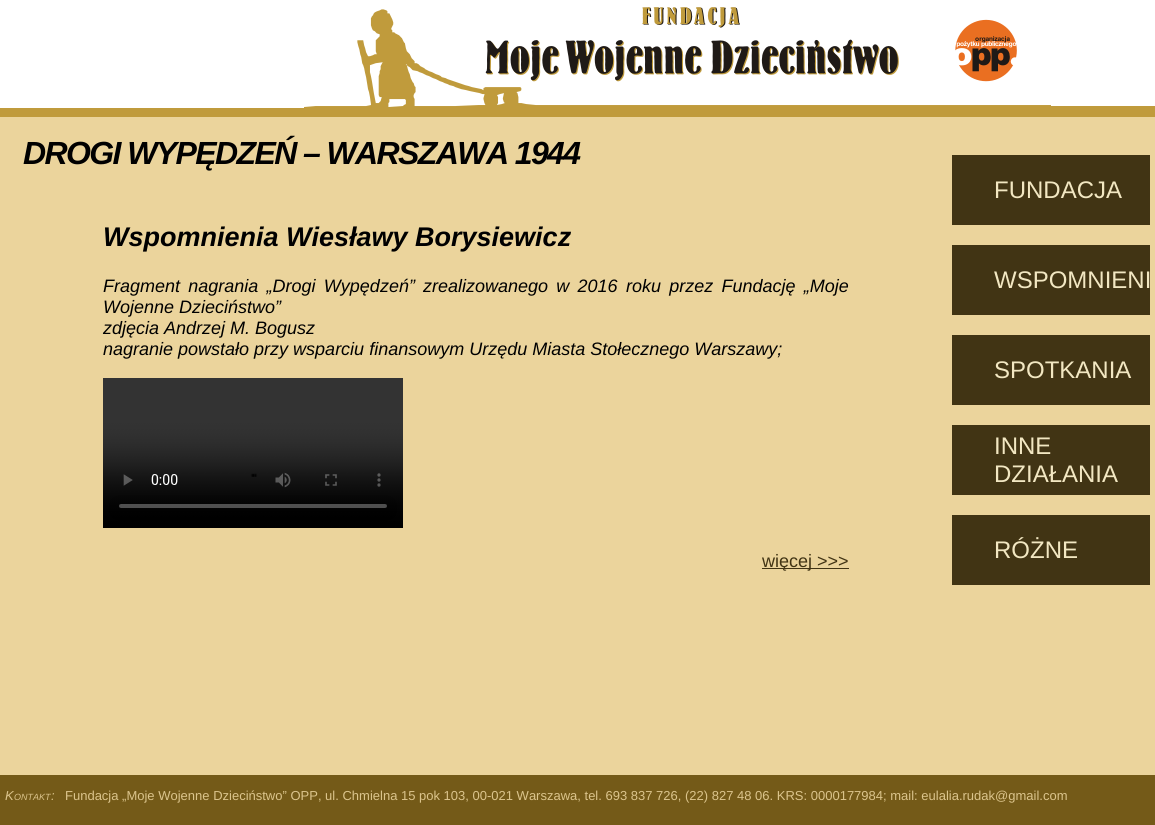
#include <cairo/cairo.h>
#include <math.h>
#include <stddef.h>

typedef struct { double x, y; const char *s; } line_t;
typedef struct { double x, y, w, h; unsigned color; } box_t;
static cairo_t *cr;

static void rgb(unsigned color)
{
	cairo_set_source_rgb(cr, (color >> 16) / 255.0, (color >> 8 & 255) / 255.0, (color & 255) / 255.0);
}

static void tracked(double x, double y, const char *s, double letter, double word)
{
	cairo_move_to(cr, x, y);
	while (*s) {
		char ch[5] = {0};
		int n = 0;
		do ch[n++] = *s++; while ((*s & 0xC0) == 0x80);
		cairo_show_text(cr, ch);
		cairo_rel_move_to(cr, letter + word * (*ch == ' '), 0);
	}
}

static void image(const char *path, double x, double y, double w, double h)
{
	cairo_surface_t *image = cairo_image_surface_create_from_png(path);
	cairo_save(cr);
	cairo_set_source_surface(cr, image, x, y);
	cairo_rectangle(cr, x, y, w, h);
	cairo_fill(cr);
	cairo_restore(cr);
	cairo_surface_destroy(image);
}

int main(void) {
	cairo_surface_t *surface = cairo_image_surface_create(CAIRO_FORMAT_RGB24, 1155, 825);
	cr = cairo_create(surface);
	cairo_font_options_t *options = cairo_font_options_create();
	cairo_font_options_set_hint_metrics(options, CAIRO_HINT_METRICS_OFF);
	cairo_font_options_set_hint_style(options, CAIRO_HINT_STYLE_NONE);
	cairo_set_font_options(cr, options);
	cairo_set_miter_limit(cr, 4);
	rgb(0xebd49c);
	cairo_paint(cr);
	rgb(0xffffff);
	cairo_rectangle(cr, 0, 0, 1155, 108);
	cairo_fill(cr);
	image("img/1.png", 304, 7, 747, 101);
	rgb(0xc09b3c);
	cairo_rectangle(cr, 0, 108, 1040, 9);
	cairo_fill(cr);
	cairo_rectangle(cr, 1040, 106, 115, 11);
	cairo_fill(cr);
	image("img/2.png", 103, 378, 300, 150);
	{
		static const box_t items[] = {
			{762, 568, 87, 1, 0x413414},
			{952, 155, 198, 70, 0x413414},
			{952, 245, 198, 70, 0x413414},
			{952, 335, 198, 70, 0x413414},
			{952, 425, 198, 70, 0x413414},
			{952, 515, 198, 70, 0x413414},
			{0, 775, 1155, 50, 0x745a18},
		};
		for (size_t i = 0; i < sizeof items / sizeof *items; i++) {
			rgb(items[i].color);
			cairo_rectangle(cr, items[i].x, items[i].y, items[i].w, items[i].h);
			cairo_fill(cr);
		}
	}
	cairo_select_font_face(cr, "Liberation Sans", CAIRO_FONT_SLANT_ITALIC, CAIRO_FONT_WEIGHT_BOLD);
	cairo_set_font_size(cr, 32);
	rgb(0x000000);
	tracked(23, 164, "DROGI WYPĘDZEŃ – WARSZAWA 1944", -1.6, 0);
	cairo_set_font_size(cr, 27);
	cairo_move_to(cr, 103, 246);
	cairo_show_text(cr, "Wspomnienia Wiesławy Borysiewicz");
	cairo_select_font_face(cr, "Liberation Sans", CAIRO_FONT_SLANT_ITALIC, CAIRO_FONT_WEIGHT_NORMAL);
	cairo_set_font_size(cr, 18);
	tracked(103, 292, "Fragment nagrania „Drogi Wypędzeń”", 0, 3.25);
	tracked(423, 292, "zrealizowanego w 2016 roku przez Fundację „Moje", 0, 3.25);
	{
		static const line_t items[] = {
			{103, 313, "Wojenne Dzieciństwo”"},
			{103, 334, "zdjęcia Andrzej M. Bogusz"},
			{103, 355, "nagranie powstało przy wsparciu finansowym Urzędu Miasta Stołecznego Warszawy;"},
		};
		for (size_t i = 0; i < sizeof items / sizeof *items; i++) {
			cairo_move_to(cr, items[i].x, items[i].y);
			cairo_show_text(cr, items[i].s);
		}
	}
	cairo_select_font_face(cr, "Liberation Sans", CAIRO_FONT_SLANT_NORMAL, CAIRO_FONT_WEIGHT_NORMAL);
	rgb(0x413414);
	cairo_move_to(cr, 762, 567);
	cairo_show_text(cr, "więcej >>>");
	cairo_set_font_size(cr, 24);
	rgb(0xf2e7c2);
	{
		static const line_t items[] = {
			{994, 198, "FUNDACJA"},
			{994, 288, "WSPOMNIENI"},
			{994, 378, "SPOTKANIA"},
			{994, 454, "INNE"},
			{994, 482, "DZIAŁANIA"},
			{994, 558, "RÓŻNE"},
		};
		for (size_t i = 0; i < sizeof items / sizeof *items; i++) {
			cairo_move_to(cr, items[i].x, items[i].y);
			cairo_show_text(cr, items[i].s);
		}
	}
	cairo_select_font_face(cr, "Liberation Sans", CAIRO_FONT_SLANT_ITALIC, CAIRO_FONT_WEIGHT_NORMAL);
	cairo_set_font_size(cr, 13);
	rgb(0xdbc48c);
	cairo_move_to(cr, 5, 800);
	cairo_show_text(cr, "K");
	cairo_set_font_size(cr, 9);
	cairo_move_to(cr, 14, 800);
	cairo_show_text(cr, "ONTAKT");
	cairo_set_font_size(cr, 13);
	cairo_move_to(cr, 51, 800);
	cairo_show_text(cr, ":");
	cairo_select_font_face(cr, "Liberation Sans", CAIRO_FONT_SLANT_NORMAL, CAIRO_FONT_WEIGHT_NORMAL);
	cairo_move_to(cr, 65, 800);
	cairo_show_text(cr, "Fundacja „Moje Wojenne Dzieciństwo” OPP, ul. Chmielna 15 pok 103, 00-021 Warszawa, tel. 693 837 726, (22) 827 48 06. KRS: 0000177984; mail: eulalia.rudak@gmail.com");
	cairo_surface_write_to_png(surface, "page.png");
	cairo_font_options_destroy(options);
	cairo_destroy(cr);
	cairo_surface_destroy(surface);
	return 0;
}
